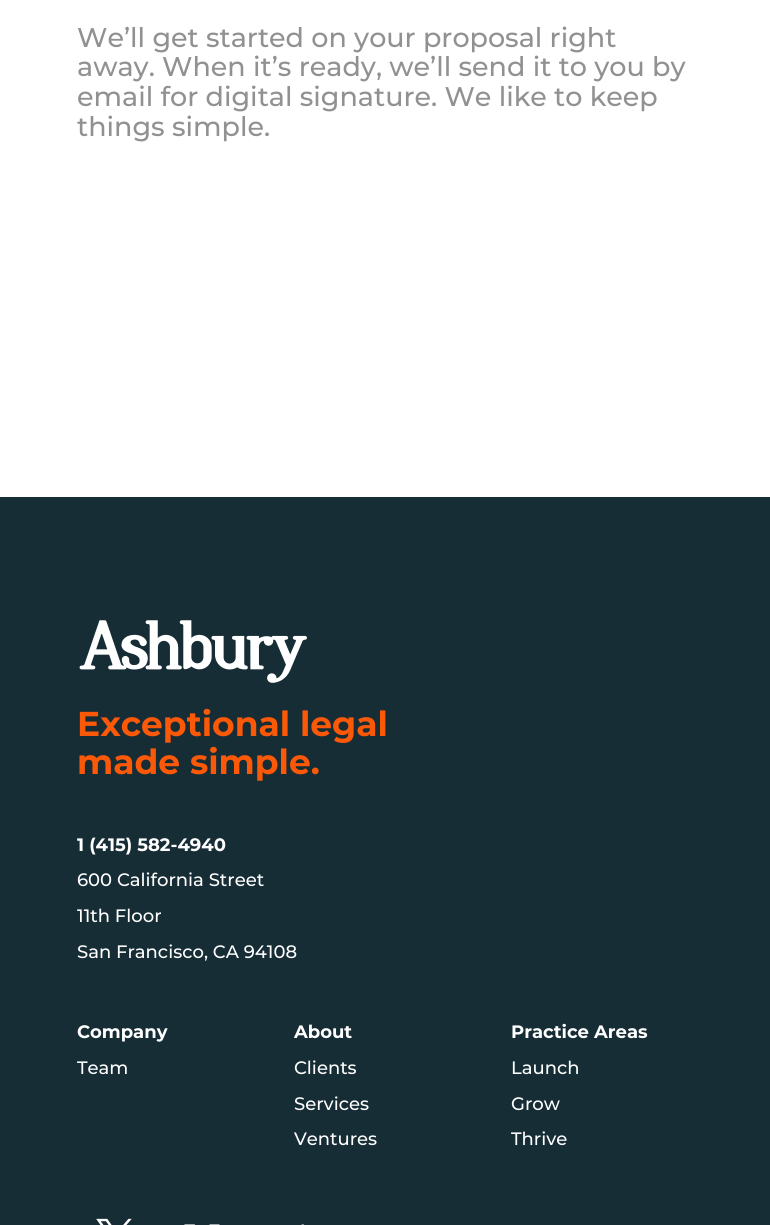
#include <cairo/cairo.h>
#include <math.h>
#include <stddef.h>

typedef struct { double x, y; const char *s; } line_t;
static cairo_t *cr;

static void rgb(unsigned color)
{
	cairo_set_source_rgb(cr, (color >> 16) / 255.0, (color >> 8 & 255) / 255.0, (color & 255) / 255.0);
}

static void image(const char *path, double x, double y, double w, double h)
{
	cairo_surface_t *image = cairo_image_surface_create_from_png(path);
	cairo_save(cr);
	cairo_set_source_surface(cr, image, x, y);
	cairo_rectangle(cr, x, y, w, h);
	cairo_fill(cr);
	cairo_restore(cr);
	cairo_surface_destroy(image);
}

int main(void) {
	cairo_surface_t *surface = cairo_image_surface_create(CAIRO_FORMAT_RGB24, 770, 1225);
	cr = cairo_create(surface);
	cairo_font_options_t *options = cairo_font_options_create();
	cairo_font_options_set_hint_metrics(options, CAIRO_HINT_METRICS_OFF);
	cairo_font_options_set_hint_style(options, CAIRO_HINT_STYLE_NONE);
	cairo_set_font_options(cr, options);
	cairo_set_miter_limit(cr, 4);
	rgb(0xffffff);
	cairo_paint(cr);
	rgb(0x162d36);
	cairo_rectangle(cr, 0, 497, 770, 728);
	cairo_fill(cr);
	image("img/1.png", 79, 620, 228, 63);
	image("img/2.png", 96, 1218, 36, 7);
	image("img/3.png", 184, 1224, 36, 1);
	image("img/4.png", 301, 1224, 3, 1);
	cairo_select_font_face(cr, "Montserrat Medium", CAIRO_FONT_SLANT_NORMAL, CAIRO_FONT_WEIGHT_NORMAL);
	cairo_set_font_size(cr, 27);
	rgb(0x919191);
	{
		static const line_t items[] = {
			{77, 47, "We’ll get started on your proposal right"},
			{77, 76, "away. When it’s ready, we’ll send it to you by"},
			{77, 106, "email for digital signature. We like to keep"},
			{77, 136, "things simple."},
		};
		for (size_t i = 0; i < sizeof items / sizeof *items; i++) {
			cairo_move_to(cr, items[i].x, items[i].y);
			cairo_show_text(cr, items[i].s);
		}
	}
	cairo_select_font_face(cr, "Montserrat", CAIRO_FONT_SLANT_NORMAL, CAIRO_FONT_WEIGHT_BOLD);
	cairo_set_font_size(cr, 34.5);
	rgb(0xfb5807);
	cairo_move_to(cr, 77, 736);
	cairo_show_text(cr, "Exceptional legal");
	cairo_move_to(cr, 77, 774);
	cairo_show_text(cr, "made simple.");
	cairo_set_font_size(cr, 18);
	rgb(0xffffff);
	cairo_move_to(cr, 77, 851);
	cairo_show_text(cr, "1 (415) 582-4940");
	cairo_select_font_face(cr, "Montserrat Medium", CAIRO_FONT_SLANT_NORMAL, CAIRO_FONT_WEIGHT_NORMAL);
	{
		static const line_t items[] = {
			{77, 886, "600 California Street"},
			{77, 922, "11th Floor"},
			{77, 958, "San Francisco, CA 94108"},
		};
		for (size_t i = 0; i < sizeof items / sizeof *items; i++) {
			cairo_move_to(cr, items[i].x, items[i].y);
			cairo_show_text(cr, items[i].s);
		}
	}
	cairo_select_font_face(cr, "Montserrat", CAIRO_FONT_SLANT_NORMAL, CAIRO_FONT_WEIGHT_BOLD);
	cairo_move_to(cr, 77, 1038);
	cairo_show_text(cr, "Company");
	cairo_select_font_face(cr, "Montserrat Medium", CAIRO_FONT_SLANT_NORMAL, CAIRO_FONT_WEIGHT_NORMAL);
	cairo_move_to(cr, 77, 1074);
	cairo_show_text(cr, "Team");
	cairo_select_font_face(cr, "Montserrat", CAIRO_FONT_SLANT_NORMAL, CAIRO_FONT_WEIGHT_BOLD);
	cairo_move_to(cr, 294, 1038);
	cairo_show_text(cr, "About");
	cairo_select_font_face(cr, "Montserrat Medium", CAIRO_FONT_SLANT_NORMAL, CAIRO_FONT_WEIGHT_NORMAL);
	{
		static const line_t items[] = {
			{294, 1074, "Clients"},
			{294, 1110, "Services"},
			{294, 1145, "Ventures"},
		};
		for (size_t i = 0; i < sizeof items / sizeof *items; i++) {
			cairo_move_to(cr, items[i].x, items[i].y);
			cairo_show_text(cr, items[i].s);
		}
	}
	cairo_select_font_face(cr, "Montserrat", CAIRO_FONT_SLANT_NORMAL, CAIRO_FONT_WEIGHT_BOLD);
	cairo_move_to(cr, 511, 1038);
	cairo_show_text(cr, "Practice Areas");
	cairo_select_font_face(cr, "Montserrat Medium", CAIRO_FONT_SLANT_NORMAL, CAIRO_FONT_WEIGHT_NORMAL);
	{
		static const line_t items[] = {
			{511, 1074, "Launch"},
			{511, 1110, "Grow"},
			{511, 1145, "Thrive"},
		};
		for (size_t i = 0; i < sizeof items / sizeof *items; i++) {
			cairo_move_to(cr, items[i].x, items[i].y);
			cairo_show_text(cr, items[i].s);
		}
	}
	cairo_surface_write_to_png(surface, "page.png");
	cairo_font_options_destroy(options);
	cairo_destroy(cr);
	cairo_surface_destroy(surface);
	return 0;
}
